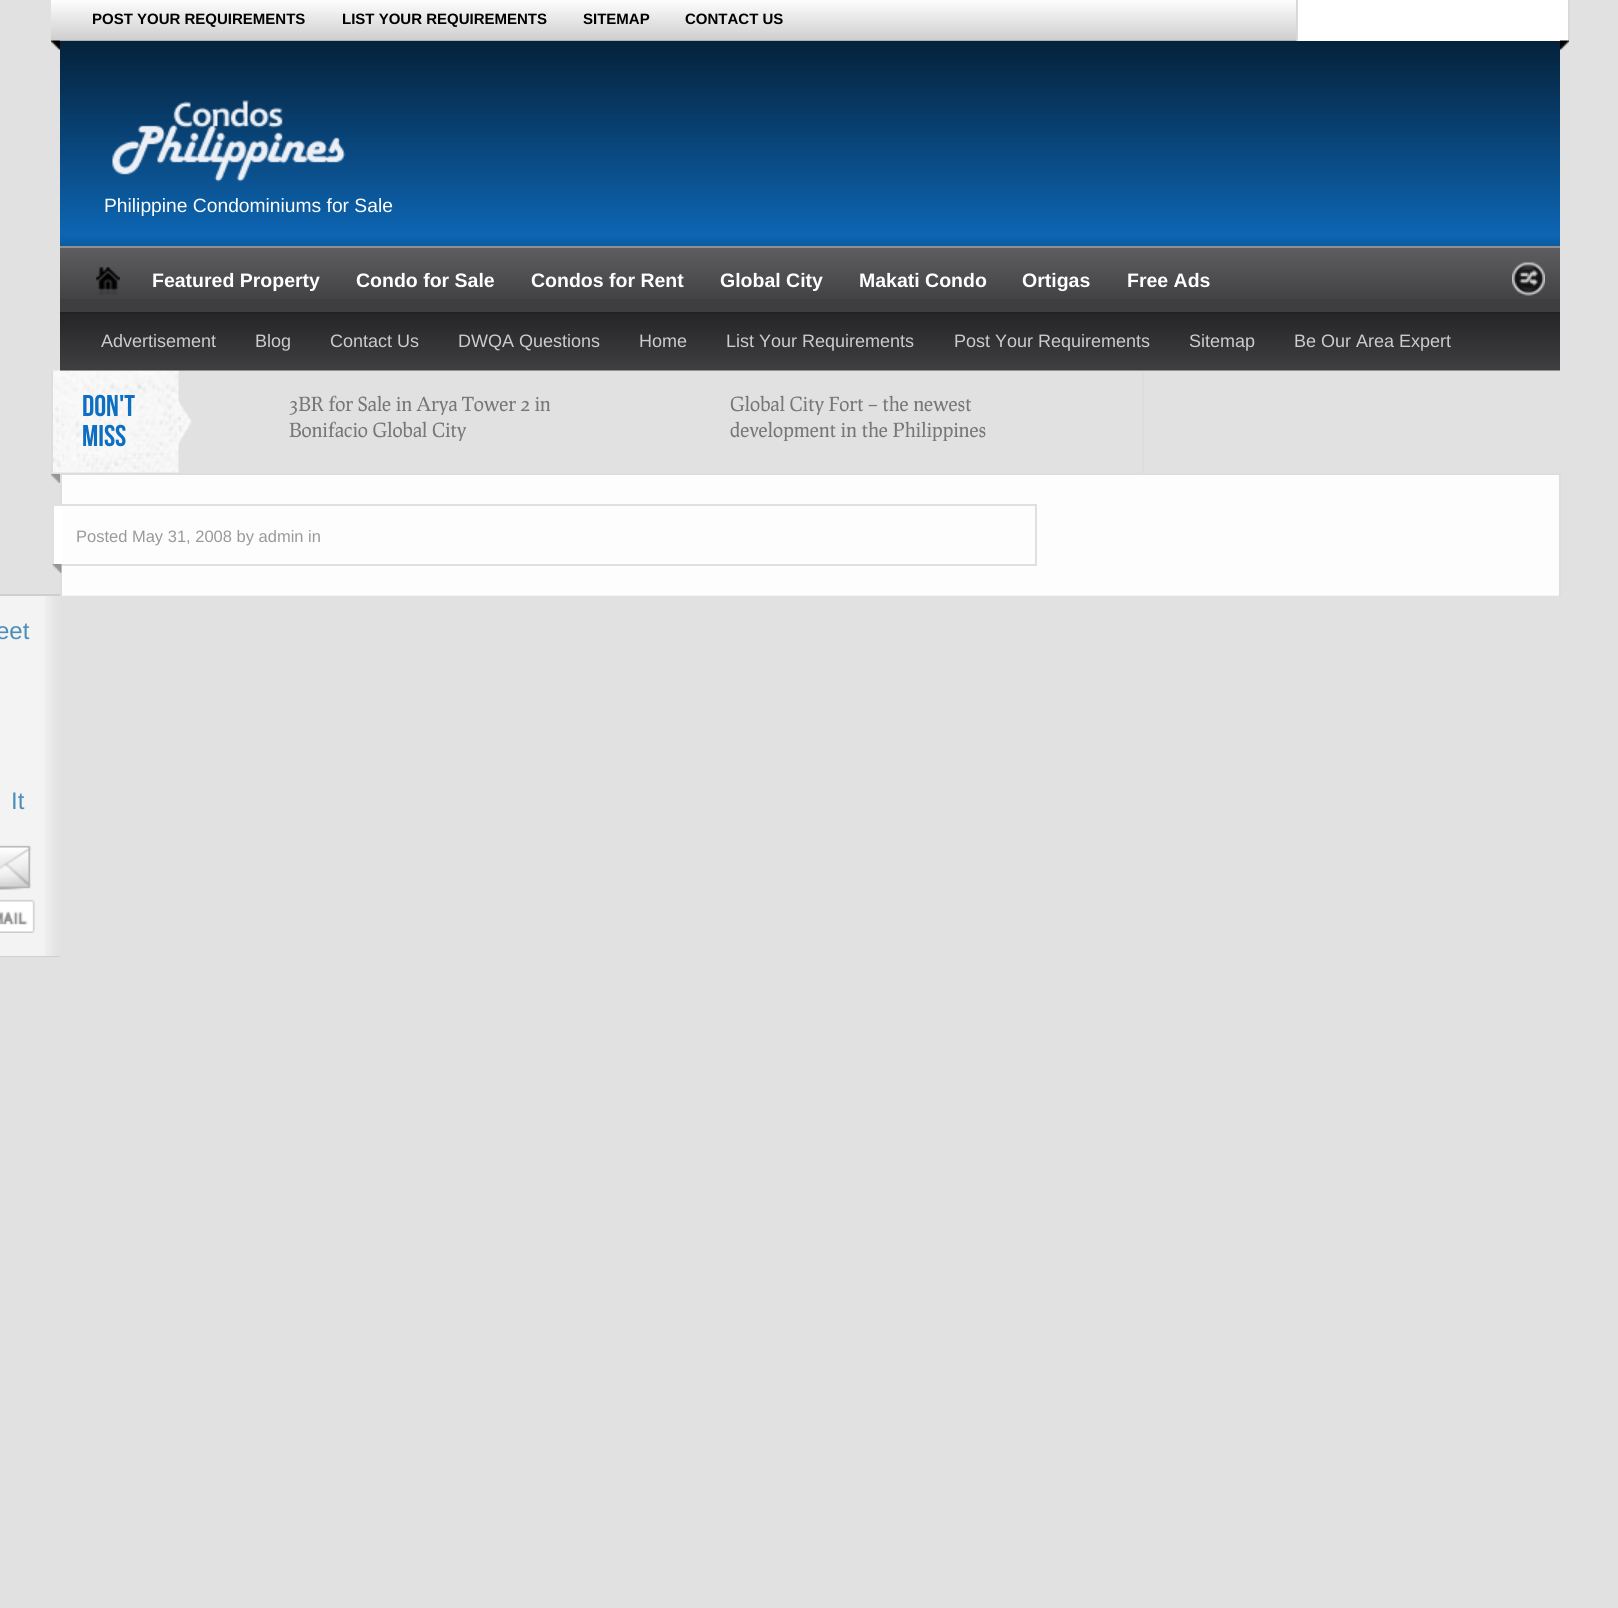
#include <cairo/cairo.h>
#include <math.h>
#include <stddef.h>

typedef struct { double x, y; const char *s; } line_t;
typedef struct { double x, y, w, h; unsigned color; } box_t;
static cairo_t *cr;

static void rgb(unsigned color)
{
	cairo_set_source_rgb(cr, (color >> 16) / 255.0, (color >> 8 & 255) / 255.0, (color & 255) / 255.0);
}

static void image(const char *path, double x, double y, double w, double h)
{
	cairo_surface_t *image = cairo_image_surface_create_from_png(path);
	cairo_save(cr);
	cairo_set_source_surface(cr, image, x, y);
	cairo_rectangle(cr, x, y, w, h);
	cairo_fill(cr);
	cairo_restore(cr);
	cairo_surface_destroy(image);
}

int main(void) {
	cairo_surface_t *surface = cairo_image_surface_create(CAIRO_FORMAT_RGB24, 1618, 1608);
	cr = cairo_create(surface);
	cairo_font_options_t *options = cairo_font_options_create();
	cairo_font_options_set_hint_metrics(options, CAIRO_HINT_METRICS_OFF);
	cairo_font_options_set_hint_style(options, CAIRO_HINT_STYLE_NONE);
	cairo_set_font_options(cr, options);
	cairo_set_miter_limit(cr, 4);
	rgb(0xe1e1e1);
	cairo_paint(cr);
	rgb(0x0e6ec2);
	cairo_rectangle(cr, 60, 41, 1500, 205);
	cairo_fill(cr);
	image("img/4.png", 60, 40, 1500, 206);
	image("img/1.png", 51, 0, 1245, 41);
	{
		static const box_t items[] = {
			{1298, 0, 270, 41, 0xffffff},
			{1568, 0, 2, 41, 0xd9d9d9},
			{1296, 0, 2, 41, 0xd9d9d9},
		};
		for (size_t i = 0; i < sizeof items / sizeof *items; i++) {
			rgb(items[i].color);
			cairo_rectangle(cr, items[i].x, items[i].y, items[i].w, items[i].h);
			cairo_fill(cr);
		}
	}
	image("img/2.png", 51, 40, 9, 10);
	image("img/3.png", 1560, 40, 9, 10);
	image("img/5.png", 112, 100, 234, 82);
	image("img/6.png", 60, 236, 1500, 10);
	rgb(0x3e3e40);
	cairo_rectangle(cr, 60, 299, 1500, 13);
	cairo_fill(cr);
	image("img/7.png", 60, 248, 1500, 51);
	rgb(0x909090);
	cairo_rectangle(cr, 60, 246, 1500, 2);
	cairo_fill(cr);
	image("img/8.png", 96, 267, 24, 28);
	image("img/9.png", 1512, 262, 33, 34);
	image("img/11.png", 52, 370, 127, 103);
	image("img/10.png", 60, 314, 1500, 57);
	{
		static const box_t items[] = {
			{60, 312, 1500, 2, 0x222222},
			{1559, 474, 2, 122, 0xdddddd},
			{60, 474, 2, 122, 0xdddddd},
			{51, 473, 1509, 2, 0xdddddd},
			{51, 371, 2, 103, 0xdddddd},
		};
		for (size_t i = 0; i < sizeof items / sizeof *items; i++) {
			rgb(items[i].color);
			cairo_rectangle(cr, items[i].x, items[i].y, items[i].w, items[i].h);
			cairo_fill(cr);
		}
	}
	image("img/12.png", 177, 400, 15, 43);
	cairo_rectangle(cr, 1142, 371, 2, 102);
	cairo_fill(cr);
	image("img/13.png", 51, 474, 9, 9);
	rgb(0xf5f5f5);
	cairo_rectangle(cr, 62, 595, 1497, 1);
	cairo_fill(cr);
	rgb(0xfdfdfd);
	cairo_rectangle(cr, 62, 475, 1497, 120);
	cairo_fill(cr);
	cairo_rectangle(cr, 54, 505, 982, 60);
	rgb(0xe0e0e0);
	cairo_stroke(cr);
	rgb(0xffffff);
	cairo_rectangle(cr, 54, 506, 8, 58);
	cairo_fill(cr);
	image("img/14.png", 52, 564, 10, 9);
	rgb(0xf3f3f3);
	cairo_rectangle(cr, 0, 596, 45, 360);
	cairo_fill(cr);
	image("img/15.png", 45, 596, 15, 360);
	rgb(0xcfcfcf);
	cairo_set_fill_rule(cr, CAIRO_FILL_RULE_EVEN_ODD);
	cairo_new_path(cr);
	cairo_move_to(cr, -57, 594);
	cairo_line_to(cr, 60, 594);
	cairo_line_to(cr, 60, 957);
	cairo_line_to(cr, -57, 957);
	cairo_curve_to(cr, -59, 957, -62, 955, -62, 952);
	cairo_line_to(cr, -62, 598);
	cairo_curve_to(cr, -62, 596, -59, 594, -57, 594);
	cairo_close_path(cr);
	cairo_move_to(cr, -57, 596);
	cairo_line_to(cr, 60, 596);
	cairo_line_to(cr, 60, 956);
	cairo_line_to(cr, -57, 956);
	cairo_curve_to(cr, -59, 956, -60, 954, -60, 952);
	cairo_line_to(cr, -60, 598);
	cairo_curve_to(cr, -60, 597, -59, 596, -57, 596);
	cairo_close_path(cr);
	cairo_fill(cr);
	image("img/16.png", 0, 845, 35, 88);
	cairo_select_font_face(cr, "Liberation Sans", CAIRO_FONT_SLANT_NORMAL, CAIRO_FONT_WEIGHT_BOLD);
	cairo_set_font_size(cr, 15);
	rgb(0x000000);
	{
		static const line_t items[] = {
			{92, 24, "POST YOUR REQUIREMENTS"},
			{342, 24, "LIST YOUR REQUIREMENTS"},
			{583, 24, "SITEMAP"},
			{685, 24, "CONTACT US"},
		};
		for (size_t i = 0; i < sizeof items / sizeof *items; i++) {
			cairo_move_to(cr, items[i].x, items[i].y);
			cairo_show_text(cr, items[i].s);
		}
	}
	cairo_select_font_face(cr, "Liberation Sans", CAIRO_FONT_SLANT_NORMAL, CAIRO_FONT_WEIGHT_NORMAL);
	cairo_set_font_size(cr, 19.25);
	rgb(0xffffff);
	cairo_move_to(cr, 104, 212);
	cairo_show_text(cr, "Philippine Condominiums for Sale");
	cairo_select_font_face(cr, "Liberation Sans", CAIRO_FONT_SLANT_NORMAL, CAIRO_FONT_WEIGHT_BOLD);
	cairo_set_font_size(cr, 19.5);
	{
		static const line_t items[] = {
			{152, 287, "Featured Property"},
			{356, 287, "Condo for Sale"},
			{531, 287, "Condos for Rent"},
			{720, 287, "Global City"},
			{859, 287, "Makati Condo"},
			{1022, 287, "Ortigas"},
			{1127, 287, "Free Ads"},
		};
		for (size_t i = 0; i < sizeof items / sizeof *items; i++) {
			cairo_move_to(cr, items[i].x, items[i].y);
			cairo_show_text(cr, items[i].s);
		}
	}
	cairo_select_font_face(cr, "Liberation Sans", CAIRO_FONT_SLANT_NORMAL, CAIRO_FONT_WEIGHT_NORMAL);
	cairo_set_font_size(cr, 18);
	rgb(0xcccccc);
	{
		static const line_t items[] = {
			{101, 347, "Advertisement"},
			{255, 347, "Blog"},
			{330, 347, "Contact Us"},
			{458, 347, "DWQA Questions"},
			{639, 347, "Home"},
			{726, 347, "List Your Requirements"},
			{954, 347, "Post Your Requirements"},
			{1189, 347, "Sitemap"},
			{1294, 347, "Be Our Area Expert"},
		};
		for (size_t i = 0; i < sizeof items / sizeof *items; i++) {
			cairo_move_to(cr, items[i].x, items[i].y);
			cairo_show_text(cr, items[i].s);
		}
	}
	cairo_select_font_face(cr, "Bebas Neue", CAIRO_FONT_SLANT_NORMAL, CAIRO_FONT_WEIGHT_NORMAL);
	cairo_set_font_size(cr, 30);
	rgb(0x0e6ec2);
	cairo_move_to(cr, 82, 416);
	cairo_show_text(cr, "DON'T");
	cairo_move_to(cr, 82, 446);
	cairo_show_text(cr, "MISS");
	cairo_select_font_face(cr, "Prociono", CAIRO_FONT_SLANT_NORMAL, CAIRO_FONT_WEIGHT_NORMAL);
	cairo_set_font_size(cr, 19.25);
	rgb(0x777777);
	{
		static const line_t items[] = {
			{289, 411, "3BR for Sale in Arya Tower 2 in"},
			{289, 437, "Bonifacio Global City"},
			{730, 411, "Global City Fort – the newest"},
			{730, 437, "development in the Philippines"},
		};
		for (size_t i = 0; i < sizeof items / sizeof *items; i++) {
			cairo_move_to(cr, items[i].x, items[i].y);
			cairo_show_text(cr, items[i].s);
		}
	}
	cairo_select_font_face(cr, "Liberation Sans", CAIRO_FONT_SLANT_NORMAL, CAIRO_FONT_WEIGHT_NORMAL);
	cairo_set_font_size(cr, 16.5);
	rgb(0x999999);
	cairo_move_to(cr, 76, 542);
	cairo_show_text(cr, "Posted May 31, 2008 by admin in");
	cairo_set_font_size(cr, 24);
	rgb(0x4c8eb9);
	cairo_move_to(cr, -4, 639);
	cairo_show_text(cr, "eet");
	cairo_move_to(cr, 11, 809);
	cairo_show_text(cr, "It");
	cairo_surface_write_to_png(surface, "page.png");
	cairo_font_options_destroy(options);
	cairo_destroy(cr);
	cairo_surface_destroy(surface);
	return 0;
}
